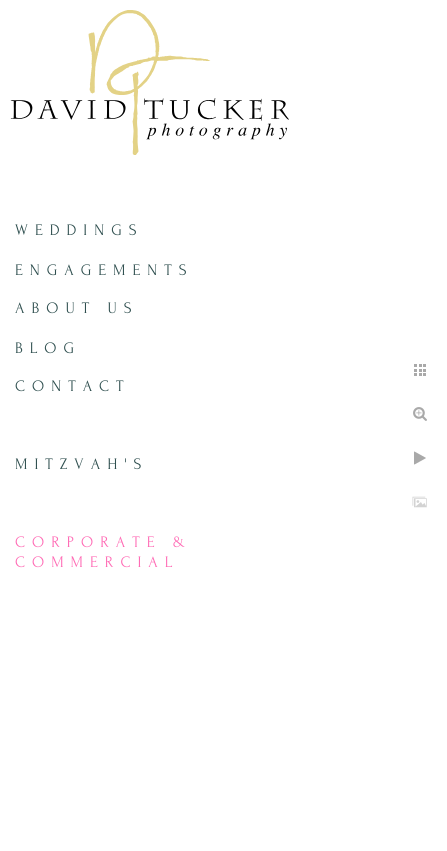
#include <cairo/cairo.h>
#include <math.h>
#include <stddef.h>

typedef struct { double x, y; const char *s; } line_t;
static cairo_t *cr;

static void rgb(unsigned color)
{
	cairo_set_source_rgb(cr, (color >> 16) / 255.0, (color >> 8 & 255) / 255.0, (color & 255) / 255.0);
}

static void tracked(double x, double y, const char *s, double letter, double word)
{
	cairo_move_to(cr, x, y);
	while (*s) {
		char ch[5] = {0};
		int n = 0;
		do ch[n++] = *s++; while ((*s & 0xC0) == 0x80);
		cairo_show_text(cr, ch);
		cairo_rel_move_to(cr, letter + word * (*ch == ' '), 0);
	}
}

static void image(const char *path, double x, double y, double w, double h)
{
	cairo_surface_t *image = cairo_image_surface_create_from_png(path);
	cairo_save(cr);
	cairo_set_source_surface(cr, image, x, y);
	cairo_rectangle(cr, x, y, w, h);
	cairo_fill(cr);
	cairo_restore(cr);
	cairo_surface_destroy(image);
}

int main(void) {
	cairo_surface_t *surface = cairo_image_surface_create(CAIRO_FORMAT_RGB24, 447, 851);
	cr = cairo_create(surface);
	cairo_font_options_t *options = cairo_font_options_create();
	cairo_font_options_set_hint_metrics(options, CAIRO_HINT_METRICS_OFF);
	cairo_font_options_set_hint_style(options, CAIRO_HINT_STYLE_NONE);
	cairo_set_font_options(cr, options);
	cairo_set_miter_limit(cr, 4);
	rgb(0xffffff);
	cairo_paint(cr);
	image("img/1.png", 10, 10, 279, 145);
	image("img/2.png", 414, 364, 12, 12);
	image("img/3.png", 413, 407, 14, 14);
	image("img/4.png", 414, 451, 12, 14);
	image("img/5.png", 412, 496, 15, 12);
	cairo_select_font_face(cr, "Forum", CAIRO_FONT_SLANT_NORMAL, CAIRO_FONT_WEIGHT_NORMAL);
	cairo_set_font_size(cr, 16);
	rgb(0x2f4f4f);
	{
		static const line_t items[] = {
			{15, 235, "WEDDINGS"},
			{15, 275, "ENGAGEMENTS"},
			{15, 313, "ABOUT US"},
			{15, 353, "BLOG"},
			{15, 391, "CONTACT"},
			{15, 469, "MITZVAH'S"},
		};
		for (size_t i = 0; i < sizeof items / sizeof *items; i++) {
			tracked(items[i].x, items[i].y, items[i].s, 7, 0);
		}
	}
	rgb(0xff69b4);
	tracked(15, 547, "CORPORATE &", 7, 0);
	tracked(15, 567, "COMMERCIAL", 7, 0);
	cairo_surface_write_to_png(surface, "page.png");
	cairo_font_options_destroy(options);
	cairo_destroy(cr);
	cairo_surface_destroy(surface);
	return 0;
}
